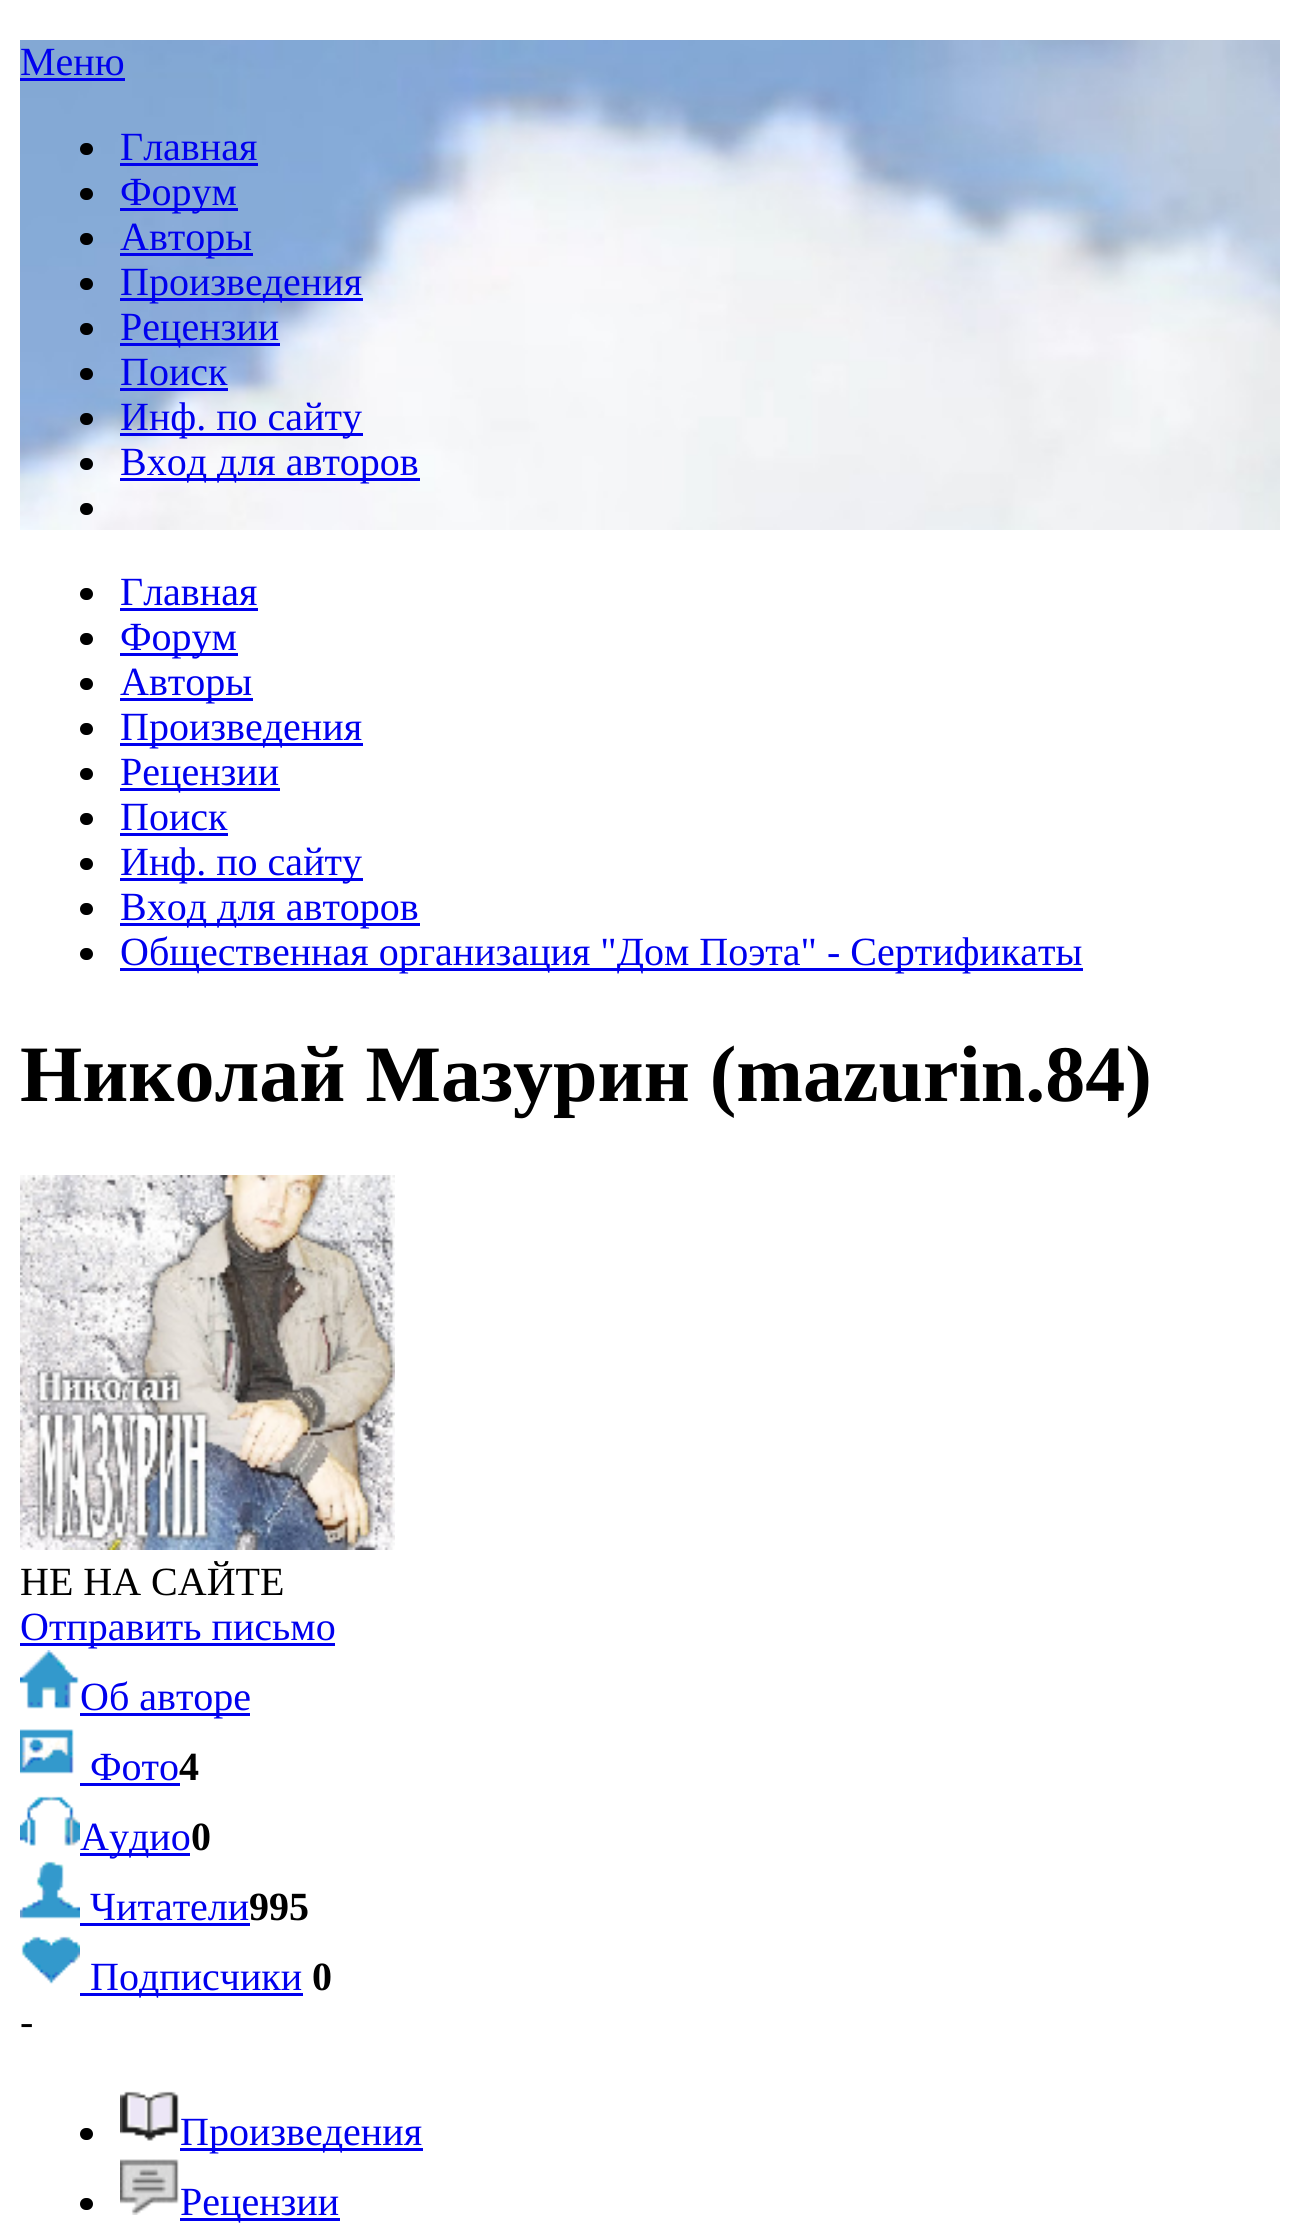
#include <cairo/cairo.h>
#include <math.h>
#include <stddef.h>

typedef struct { double x, y; const char *s; } line_t;
static cairo_t *cr;

static void rgb(unsigned color)
{
	cairo_set_source_rgb(cr, (color >> 16) / 255.0, (color >> 8 & 255) / 255.0, (color & 255) / 255.0);
}

static void rrect(double x, double y, double w, double h, double r)
{
	cairo_new_sub_path(cr);
	cairo_arc(cr, x + w - r, y + h - r, r, 0, M_PI / 2);
	cairo_arc(cr, x + r, y + h - r, r, M_PI / 2, M_PI);
	cairo_arc(cr, x + r, y + r, r, M_PI, 1.5 * M_PI);
	cairo_arc(cr, x + w - r, y + r, r, 1.5 * M_PI, 2 * M_PI);
	cairo_close_path(cr);
}

static void image(const char *path, double x, double y, double w, double h)
{
	cairo_surface_t *image = cairo_image_surface_create_from_png(path);
	cairo_save(cr);
	cairo_set_source_surface(cr, image, x, y);
	cairo_rectangle(cr, x, y, w, h);
	cairo_fill(cr);
	cairo_restore(cr);
	cairo_surface_destroy(image);
}

int main(void) {
	cairo_surface_t *surface = cairo_image_surface_create(CAIRO_FORMAT_RGB24, 1300, 2238);
	cr = cairo_create(surface);
	cairo_font_options_t *options = cairo_font_options_create();
	cairo_font_options_set_hint_metrics(options, CAIRO_HINT_METRICS_OFF);
	cairo_font_options_set_hint_style(options, CAIRO_HINT_STYLE_NONE);
	cairo_set_font_options(cr, options);
	cairo_set_miter_limit(cr, 4);
	rgb(0xffffff);
	cairo_paint(cr);
	image("img/1.png", 20, 40, 1260, 490);
	rgb(0x0000ee);
	cairo_rectangle(cr, 20, 78, 105, 3);
	cairo_fill(cr);
	rgb(0x000000);
	rrect(80, 143, 13, 12, 6);
	cairo_fill(cr);
	rgb(0x0000ee);
	cairo_rectangle(cr, 120, 163, 138, 3);
	cairo_fill(cr);
	rgb(0x000000);
	rrect(80, 188, 13, 12, 6);
	cairo_fill(cr);
	rgb(0x0000ee);
	cairo_rectangle(cr, 120, 208, 118, 3);
	cairo_fill(cr);
	rgb(0x000000);
	rrect(80, 233, 13, 12, 6);
	cairo_fill(cr);
	rgb(0x0000ee);
	cairo_rectangle(cr, 120, 253, 133, 3);
	cairo_fill(cr);
	rgb(0x000000);
	rrect(80, 278, 13, 12, 6);
	cairo_fill(cr);
	rgb(0x0000ee);
	cairo_rectangle(cr, 120, 298, 243, 3);
	cairo_fill(cr);
	rgb(0x000000);
	rrect(80, 323, 13, 12, 6);
	cairo_fill(cr);
	rgb(0x0000ee);
	cairo_rectangle(cr, 120, 343, 160, 3);
	cairo_fill(cr);
	rgb(0x000000);
	rrect(80, 368, 13, 12, 6);
	cairo_fill(cr);
	rgb(0x0000ee);
	cairo_rectangle(cr, 120, 388, 108, 3);
	cairo_fill(cr);
	rgb(0x000000);
	rrect(80, 413, 13, 12, 6);
	cairo_fill(cr);
	rgb(0x0000ee);
	cairo_rectangle(cr, 120, 433, 243, 3);
	cairo_fill(cr);
	rgb(0x000000);
	rrect(80, 458, 13, 12, 6);
	cairo_fill(cr);
	rgb(0x0000ee);
	cairo_rectangle(cr, 120, 478, 300, 3);
	cairo_fill(cr);
	rgb(0x000000);
	rrect(80, 503, 13, 12, 6);
	cairo_fill(cr);
	rrect(80, 588, 13, 12, 6);
	cairo_fill(cr);
	rgb(0x0000ee);
	cairo_rectangle(cr, 120, 608, 138, 3);
	cairo_fill(cr);
	rgb(0x000000);
	rrect(80, 633, 13, 12, 6);
	cairo_fill(cr);
	rgb(0x0000ee);
	cairo_rectangle(cr, 120, 653, 118, 3);
	cairo_fill(cr);
	rgb(0x000000);
	rrect(80, 678, 13, 12, 6);
	cairo_fill(cr);
	rgb(0x0000ee);
	cairo_rectangle(cr, 120, 698, 133, 3);
	cairo_fill(cr);
	rgb(0x000000);
	rrect(80, 723, 13, 12, 6);
	cairo_fill(cr);
	rgb(0x0000ee);
	cairo_rectangle(cr, 120, 743, 243, 3);
	cairo_fill(cr);
	rgb(0x000000);
	rrect(80, 768, 13, 12, 6);
	cairo_fill(cr);
	rgb(0x0000ee);
	cairo_rectangle(cr, 120, 788, 160, 3);
	cairo_fill(cr);
	rgb(0x000000);
	rrect(80, 813, 13, 12, 6);
	cairo_fill(cr);
	rgb(0x0000ee);
	cairo_rectangle(cr, 120, 833, 108, 3);
	cairo_fill(cr);
	rgb(0x000000);
	rrect(80, 858, 13, 12, 6);
	cairo_fill(cr);
	rgb(0x0000ee);
	cairo_rectangle(cr, 120, 878, 243, 3);
	cairo_fill(cr);
	rgb(0x000000);
	rrect(80, 903, 13, 12, 6);
	cairo_fill(cr);
	rgb(0x0000ee);
	cairo_rectangle(cr, 120, 923, 300, 3);
	cairo_fill(cr);
	rgb(0x000000);
	rrect(80, 948, 13, 12, 6);
	cairo_fill(cr);
	rgb(0x0000ee);
	cairo_rectangle(cr, 120, 968, 963, 3);
	cairo_fill(cr);
	image("img/2.png", 20, 1175, 375, 375);
	cairo_rectangle(cr, 20, 1643, 315, 3);
	cairo_fill(cr);
	image("img/3.png", 20, 1650, 59, 59);
	cairo_rectangle(cr, 80, 1713, 170, 3);
	cairo_fill(cr);
	image("img/4.png", 20, 1729, 54, 45);
	cairo_rectangle(cr, 80, 1783, 100, 3);
	cairo_fill(cr);
	image("img/5.png", 20, 1796, 60, 50);
	cairo_rectangle(cr, 80, 1853, 110, 3);
	cairo_fill(cr);
	image("img/6.png", 20, 1861, 60, 58);
	cairo_rectangle(cr, 80, 1923, 170, 3);
	cairo_fill(cr);
	image("img/7.png", 21, 1936, 59, 48);
	cairo_rectangle(cr, 80, 1993, 223, 3);
	cairo_fill(cr);
	rgb(0x000000);
	rrect(80, 2128, 13, 12, 6);
	cairo_fill(cr);
	image("img/8.png", 120, 2091, 59, 50);
	rgb(0x0000ee);
	cairo_rectangle(cr, 180, 2148, 243, 3);
	cairo_fill(cr);
	rgb(0x000000);
	rrect(80, 2198, 13, 12, 6);
	cairo_fill(cr);
	image("img/9.png", 120, 2159, 59, 56);
	rgb(0x0000ee);
	cairo_rectangle(cr, 180, 2218, 160, 3);
	cairo_fill(cr);
	cairo_select_font_face(cr, "Liberation Serif", CAIRO_FONT_SLANT_NORMAL, CAIRO_FONT_WEIGHT_NORMAL);
	cairo_set_font_size(cr, 40);
	{
		static const line_t items[] = {
			{20, 75, "Меню"},
			{120, 160, "Главная"},
			{120, 205, "Форум"},
			{120, 250, "Авторы"},
			{120, 295, "Произведения"},
			{120, 340, "Рецензии"},
			{120, 385, "Поиск"},
			{120, 430, "Инф. по сайту"},
			{120, 475, "Вход для авторов"},
			{120, 605, "Главная"},
			{120, 650, "Форум"},
			{120, 695, "Авторы"},
			{120, 740, "Произведения"},
			{120, 785, "Рецензии"},
			{120, 830, "Поиск"},
			{120, 875, "Инф. по сайту"},
			{120, 920, "Вход для авторов"},
			{120, 965, "Общественная организация \"Дом Поэта\" - Сертификаты"},
		};
		for (size_t i = 0; i < sizeof items / sizeof *items; i++) {
			cairo_move_to(cr, items[i].x, items[i].y);
			cairo_show_text(cr, items[i].s);
		}
	}
	cairo_select_font_face(cr, "Liberation Serif", CAIRO_FONT_SLANT_NORMAL, CAIRO_FONT_WEIGHT_BOLD);
	cairo_set_font_size(cr, 80);
	rgb(0x000000);
	cairo_move_to(cr, 20, 1101);
	cairo_show_text(cr, "Николай Мазурин (mazurin.84)");
	cairo_select_font_face(cr, "Liberation Serif", CAIRO_FONT_SLANT_NORMAL, CAIRO_FONT_WEIGHT_NORMAL);
	cairo_set_font_size(cr, 40);
	cairo_move_to(cr, 20, 1595);
	cairo_show_text(cr, "НЕ НА САЙТЕ");
	rgb(0x0000ee);
	{
		static const line_t items[] = {
			{20, 1640, "Отправить письмо"},
			{80, 1710, "Об авторе"},
			{90, 1780, "Фото"},
		};
		for (size_t i = 0; i < sizeof items / sizeof *items; i++) {
			cairo_move_to(cr, items[i].x, items[i].y);
			cairo_show_text(cr, items[i].s);
		}
	}
	cairo_select_font_face(cr, "Liberation Serif", CAIRO_FONT_SLANT_NORMAL, CAIRO_FONT_WEIGHT_BOLD);
	rgb(0x000000);
	cairo_move_to(cr, 179, 1780);
	cairo_show_text(cr, "4");
	cairo_select_font_face(cr, "Liberation Serif", CAIRO_FONT_SLANT_NORMAL, CAIRO_FONT_WEIGHT_NORMAL);
	rgb(0x0000ee);
	cairo_move_to(cr, 80, 1850);
	cairo_show_text(cr, "Аудио");
	cairo_select_font_face(cr, "Liberation Serif", CAIRO_FONT_SLANT_NORMAL, CAIRO_FONT_WEIGHT_BOLD);
	rgb(0x000000);
	cairo_move_to(cr, 191, 1850);
	cairo_show_text(cr, "0");
	cairo_select_font_face(cr, "Liberation Serif", CAIRO_FONT_SLANT_NORMAL, CAIRO_FONT_WEIGHT_NORMAL);
	rgb(0x0000ee);
	cairo_move_to(cr, 90, 1920);
	cairo_show_text(cr, "Читатели");
	cairo_select_font_face(cr, "Liberation Serif", CAIRO_FONT_SLANT_NORMAL, CAIRO_FONT_WEIGHT_BOLD);
	rgb(0x000000);
	cairo_move_to(cr, 249, 1920);
	cairo_show_text(cr, "995");
	cairo_select_font_face(cr, "Liberation Serif", CAIRO_FONT_SLANT_NORMAL, CAIRO_FONT_WEIGHT_NORMAL);
	rgb(0x0000ee);
	cairo_move_to(cr, 90, 1990);
	cairo_show_text(cr, "Подписчики");
	cairo_select_font_face(cr, "Liberation Serif", CAIRO_FONT_SLANT_NORMAL, CAIRO_FONT_WEIGHT_BOLD);
	rgb(0x000000);
	cairo_move_to(cr, 312, 1990);
	cairo_show_text(cr, "0");
	cairo_select_font_face(cr, "Liberation Serif", CAIRO_FONT_SLANT_NORMAL, CAIRO_FONT_WEIGHT_NORMAL);
	cairo_move_to(cr, 20, 2035);
	cairo_show_text(cr, "-");
	rgb(0x0000ee);
	cairo_move_to(cr, 180, 2145);
	cairo_show_text(cr, "Произведения");
	cairo_move_to(cr, 180, 2215);
	cairo_show_text(cr, "Рецензии");
	cairo_surface_write_to_png(surface, "page.png");
	cairo_font_options_destroy(options);
	cairo_destroy(cr);
	cairo_surface_destroy(surface);
	return 0;
}
